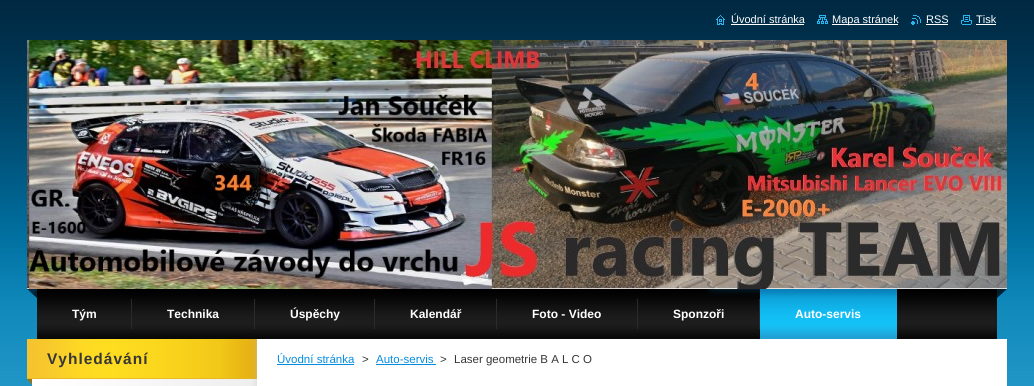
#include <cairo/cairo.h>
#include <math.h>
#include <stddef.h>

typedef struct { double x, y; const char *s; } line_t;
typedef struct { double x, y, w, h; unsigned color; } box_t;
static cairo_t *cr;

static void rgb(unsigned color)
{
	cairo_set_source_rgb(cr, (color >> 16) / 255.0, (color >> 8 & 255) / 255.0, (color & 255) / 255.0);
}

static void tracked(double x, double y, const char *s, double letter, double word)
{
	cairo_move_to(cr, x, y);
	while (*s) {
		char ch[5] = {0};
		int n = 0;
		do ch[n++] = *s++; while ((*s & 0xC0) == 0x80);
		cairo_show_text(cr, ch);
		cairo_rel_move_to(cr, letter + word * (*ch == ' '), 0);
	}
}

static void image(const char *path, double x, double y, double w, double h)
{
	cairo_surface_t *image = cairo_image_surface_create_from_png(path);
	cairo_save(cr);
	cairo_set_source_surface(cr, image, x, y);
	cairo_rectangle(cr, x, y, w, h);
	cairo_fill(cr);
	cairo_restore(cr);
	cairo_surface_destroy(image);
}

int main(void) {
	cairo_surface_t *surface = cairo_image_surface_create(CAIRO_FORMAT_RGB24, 1034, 386);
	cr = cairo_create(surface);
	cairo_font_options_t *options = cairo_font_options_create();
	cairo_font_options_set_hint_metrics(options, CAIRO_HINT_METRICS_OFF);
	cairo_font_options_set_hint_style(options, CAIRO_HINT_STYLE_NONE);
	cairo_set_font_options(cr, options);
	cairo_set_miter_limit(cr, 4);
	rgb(0xffffff);
	cairo_paint(cr);
	image("img/1.png", 0, 0, 1034, 386);
	image("img/2.png", 716, 15, 9, 10);
	rgb(0xffffff);
	cairo_rectangle(cr, 731, 24, 73, 1);
	cairo_fill(cr);
	image("img/3.png", 817, 15, 11, 9);
	cairo_rectangle(cr, 832, 24, 66, 1);
	cairo_fill(cr);
	image("img/4.png", 911, 15, 10, 10);
	cairo_rectangle(cr, 926, 24, 22, 1);
	cairo_fill(cr);
	image("img/5.png", 961, 15, 11, 10);
	cairo_rectangle(cr, 976, 24, 20, 1);
	cairo_fill(cr);
	image("img/6.png", 27, 40, 980, 249);
	image("img/7.png", 27, 289, 980, 50);
	{
		static const box_t items[] = {
			{131, 299, 1, 30, 0x2a2a2a},
			{254, 299, 1, 30, 0x2a2a2a},
			{374, 299, 1, 30, 0x2a2a2a},
			{496, 299, 1, 30, 0x2a2a2a},
			{637, 299, 1, 30, 0x2a2a2a},
			{759, 299, 1, 30, 0x2a2a2a},
		};
		for (size_t i = 0; i < sizeof items / sizeof *items; i++) {
			rgb(items[i].color);
			cairo_rectangle(cr, items[i].x, items[i].y, items[i].w, items[i].h);
			cairo_fill(cr);
		}
	}
	image("img/8.png", 760, 289, 137, 50);
	image("img/9.png", 32, 385, 225, 1);
	image("img/10.png", 27, 339, 230, 46);
	{
		static const box_t items[] = {
			{257, 339, 750, 47, 0xffffff},
			{277, 364, 77, 1, 0x058ce1},
			{376, 364, 60, 1, 0x058ce1},
		};
		for (size_t i = 0; i < sizeof items / sizeof *items; i++) {
			rgb(items[i].color);
			cairo_rectangle(cr, items[i].x, items[i].y, items[i].w, items[i].h);
			cairo_fill(cr);
		}
	}
	cairo_select_font_face(cr, "Liberation Sans", CAIRO_FONT_SLANT_NORMAL, CAIRO_FONT_WEIGHT_NORMAL);
	cairo_set_font_size(cr, 11);
	rgb(0xffffff);
	{
		static const line_t items[] = {
			{731, 23, "Úvodní stránka"},
			{832, 23, "Mapa stránek"},
			{926, 23, "RSS"},
			{976, 23, "Tisk"},
		};
		for (size_t i = 0; i < sizeof items / sizeof *items; i++) {
			cairo_move_to(cr, items[i].x, items[i].y);
			cairo_show_text(cr, items[i].s);
		}
	}
	cairo_select_font_face(cr, "Liberation Sans", CAIRO_FONT_SLANT_NORMAL, CAIRO_FONT_WEIGHT_BOLD);
	cairo_set_font_size(cr, 12);
	{
		static const line_t items[] = {
			{72, 318, "Tým"},
			{167, 318, "Technika"},
			{290, 318, "Úspěchy"},
			{410, 318, "Kalendář"},
			{532, 318, "Foto - Video"},
			{673, 318, "Sponzoři"},
			{795, 318, "Auto-servis"},
		};
		for (size_t i = 0; i < sizeof items / sizeof *items; i++) {
			cairo_move_to(cr, items[i].x, items[i].y);
			cairo_show_text(cr, items[i].s);
		}
	}
	cairo_set_font_size(cr, 15.5);
	rgb(0x363636);
	tracked(47, 364, "Vyhledávání", 1, 0);
	cairo_select_font_face(cr, "Liberation Sans", CAIRO_FONT_SLANT_NORMAL, CAIRO_FONT_WEIGHT_NORMAL);
	cairo_set_font_size(cr, 11.5);
	rgb(0x058ce1);
	cairo_move_to(cr, 277, 363);
	cairo_show_text(cr, "Úvodní stránka");
	rgb(0x363636);
	cairo_move_to(cr, 362, 363);
	cairo_show_text(cr, ">");
	rgb(0x058ce1);
	cairo_move_to(cr, 376, 363);
	cairo_show_text(cr, "Auto-servis");
	rgb(0x363636);
	cairo_move_to(cr, 440, 363);
	cairo_show_text(cr, ">");
	cairo_move_to(cr, 454, 363);
	cairo_show_text(cr, "Laser geometrie B A L C O");
	cairo_surface_write_to_png(surface, "page.png");
	cairo_font_options_destroy(options);
	cairo_destroy(cr);
	cairo_surface_destroy(surface);
	return 0;
}
